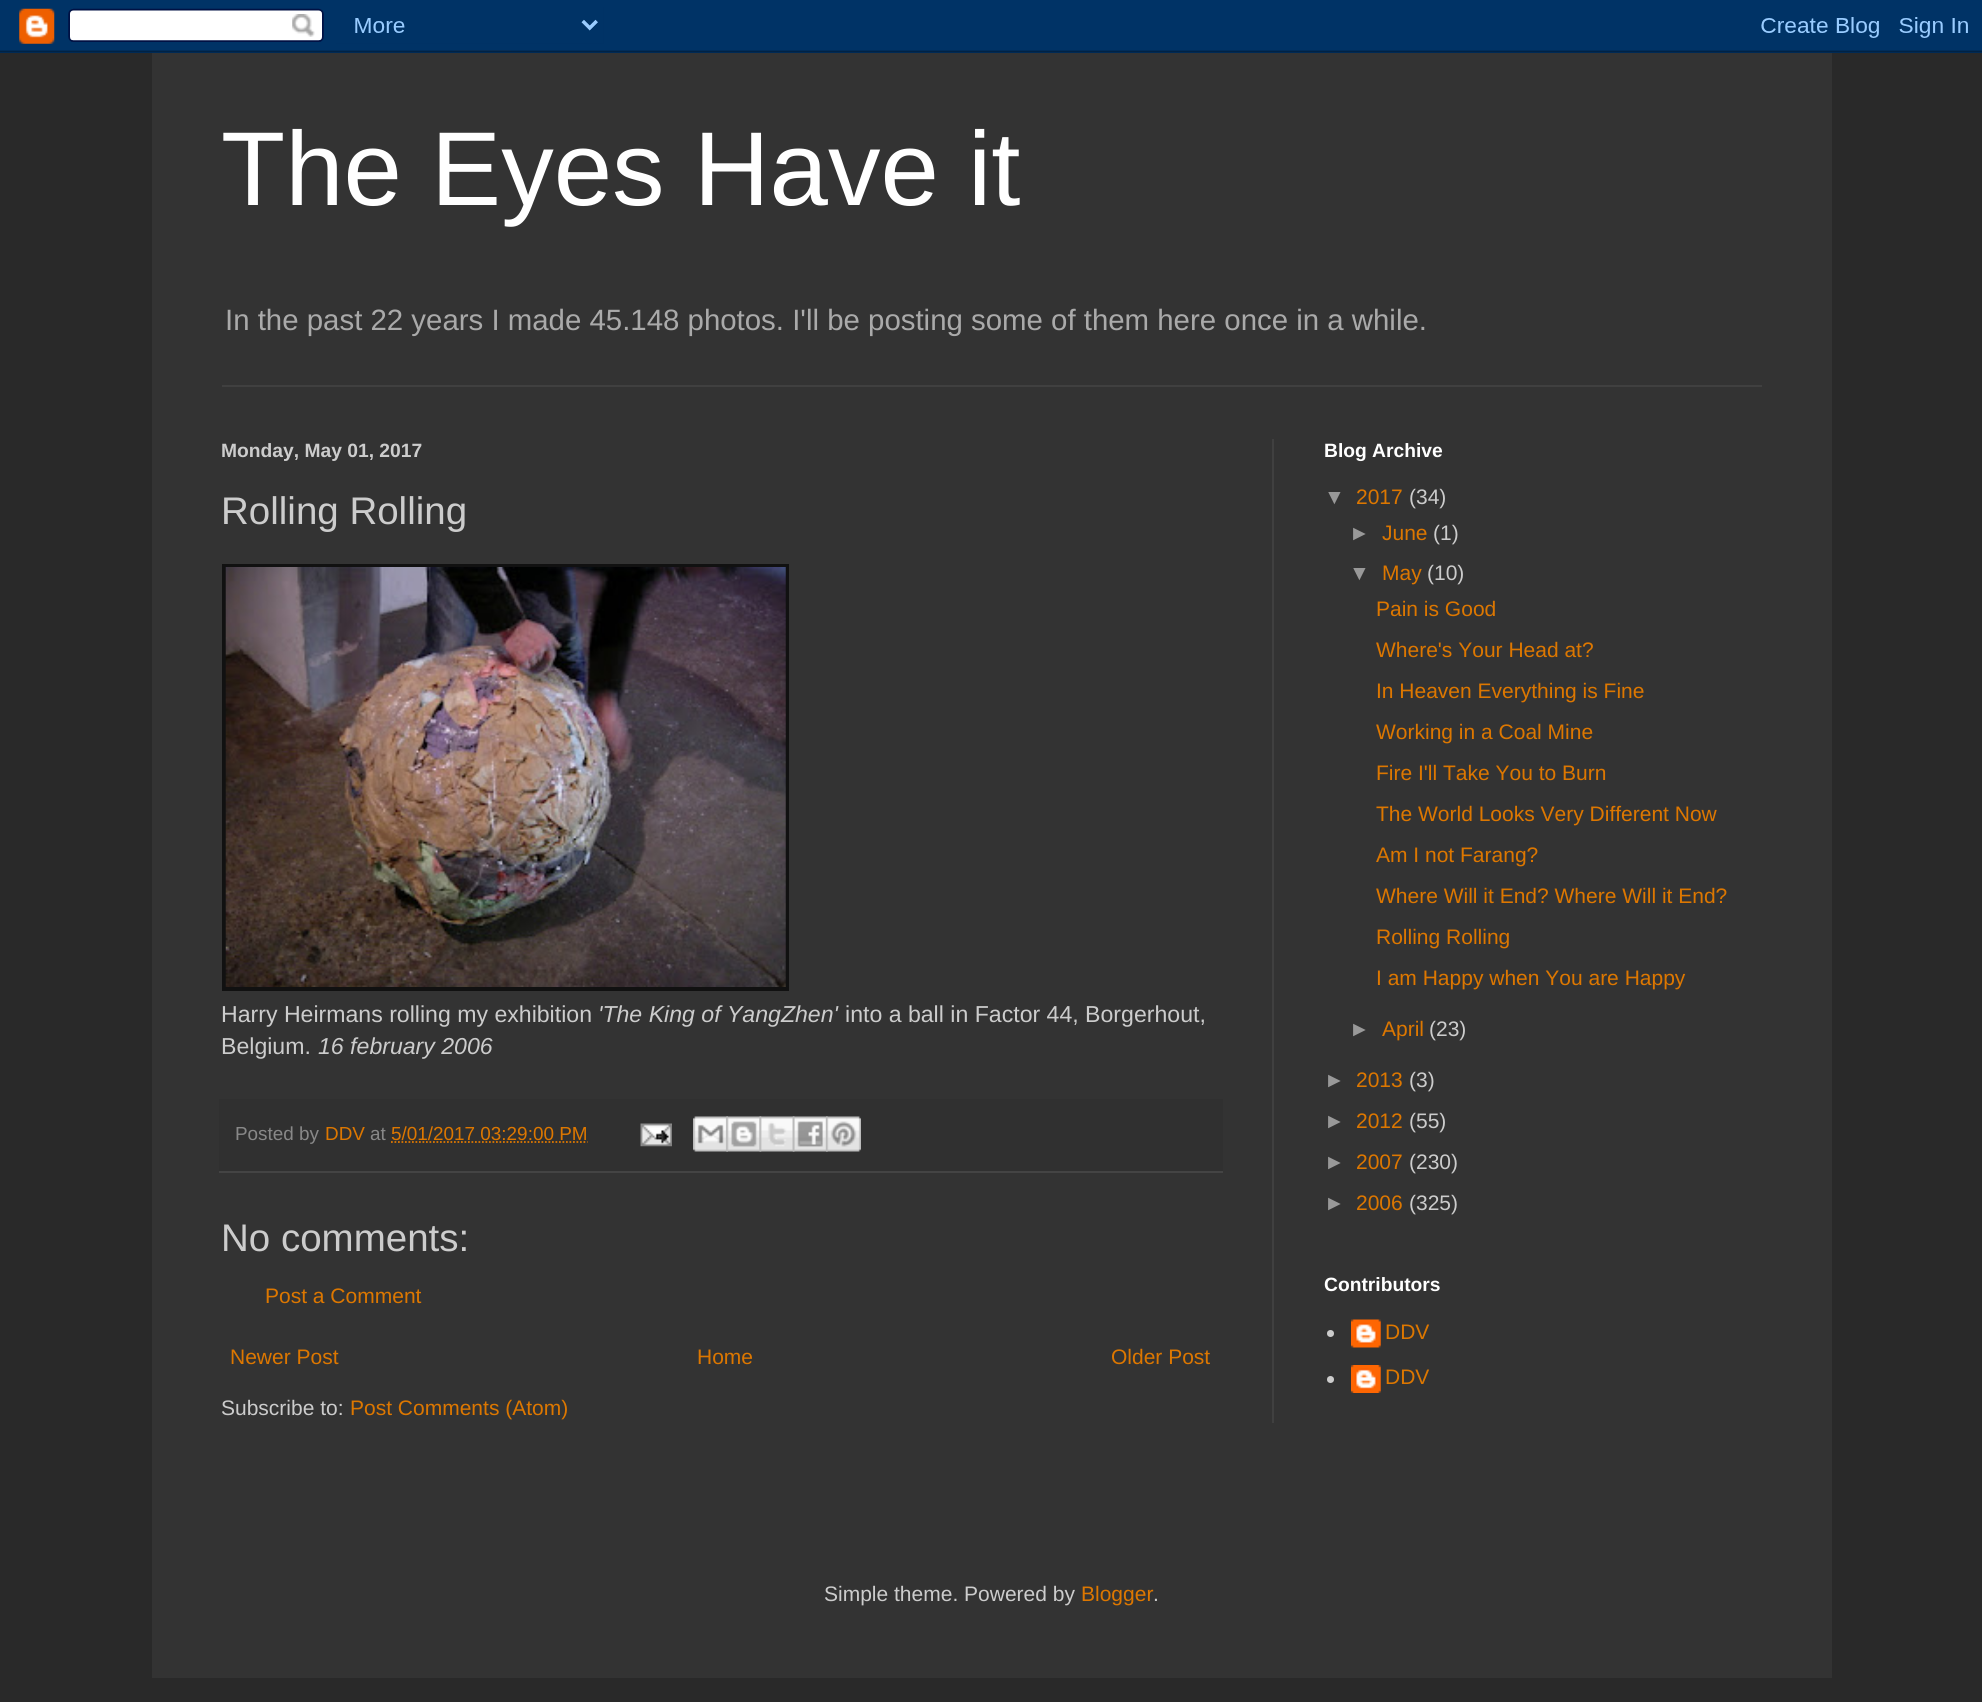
#include <cairo/cairo.h>
#include <math.h>
#include <stddef.h>

typedef struct { double x, y; const char *s; } line_t;
typedef struct { double x, y, w, h; unsigned color; } box_t;
static cairo_t *cr;

static void rgb(unsigned color)
{
	cairo_set_source_rgb(cr, (color >> 16) / 255.0, (color >> 8 & 255) / 255.0, (color & 255) / 255.0);
}

static void image(const char *path, double x, double y, double w, double h)
{
	cairo_surface_t *image = cairo_image_surface_create_from_png(path);
	cairo_save(cr);
	cairo_set_source_surface(cr, image, x, y);
	cairo_rectangle(cr, x, y, w, h);
	cairo_fill(cr);
	cairo_restore(cr);
	cairo_surface_destroy(image);
}

int main(void) {
	cairo_surface_t *surface = cairo_image_surface_create(CAIRO_FORMAT_RGB24, 1982, 1702);
	cr = cairo_create(surface);
	cairo_font_options_t *options = cairo_font_options_create();
	cairo_font_options_set_hint_metrics(options, CAIRO_HINT_METRICS_OFF);
	cairo_font_options_set_hint_style(options, CAIRO_HINT_STYLE_NONE);
	cairo_set_font_options(cr, options);
	cairo_set_miter_limit(cr, 4);
	rgb(0x292929);
	cairo_paint(cr);
	image("img/1.png", 0, 0, 1982, 53);
	{
		static const box_t items[] = {
			{152, 53, 1680, 1625, 0x333333},
			{222, 385, 1540, 2, 0x404040},
			{1272, 439, 2, 984, 0x404040},
			{222, 564, 567, 427, 0x111111},
		};
		for (size_t i = 0; i < sizeof items / sizeof *items; i++) {
			rgb(items[i].color);
			cairo_rectangle(cr, items[i].x, items[i].y, items[i].w, items[i].h);
			cairo_fill(cr);
		}
	}
	image("img/2.png", 225, 567, 561, 420);
	rgb(0x303030);
	cairo_rectangle(cr, 219, 1099, 1004, 72);
	cairo_fill(cr);
	rgb(0x444444);
	cairo_rectangle(cr, 219, 1171, 1004, 2);
	cairo_fill(cr);
	cairo_new_path(cr);
	cairo_move_to(cr, 391, 1142);
	cairo_line_to(cr, 587.5, 1142);
	rgb(0xdd7700);
	cairo_set_line_width(cr, 1.8);
	cairo_set_dash(cr, (double[]){1.75, 1.75}, 2, 0);
	cairo_stroke(cr);
	image("img/3.png", 640, 1123, 32, 24);
	image("img/4.png", 693, 1116, 35, 36);
	image("img/5.png", 726, 1116, 36, 36);
	image("img/6.png", 759, 1116, 36, 36);
	image("img/7.png", 792, 1116, 36, 36);
	image("img/8.png", 826, 1116, 35, 36);
	rgb(0xcccccc);
	cairo_arc(cr, 1330.5, 1333.5, 3.5, 0, 2 * M_PI);
	cairo_fill(cr);
	image("img/9.png", 1351, 1319, 30, 29);
	cairo_arc(cr, 1330.5, 1379.5, 3.5, 0, 2 * M_PI);
	cairo_fill(cr);
	image("img/10.png", 1351, 1365, 30, 28);
	cairo_select_font_face(cr, "Liberation Sans", CAIRO_FONT_SLANT_NORMAL, CAIRO_FONT_WEIGHT_NORMAL);
	cairo_set_font_size(cr, 105);
	rgb(0xffffff);
	cairo_move_to(cr, 221, 205);
	cairo_show_text(cr, "The Eyes Have it");
	cairo_set_font_size(cr, 29.4);
	rgb(0xaaaaaa);
	cairo_move_to(cr, 225, 330);
	cairo_show_text(cr, "In the past 22 years I made 45.148 photos. I'll be posting some of them here once in a while.");
	cairo_select_font_face(cr, "Liberation Sans", CAIRO_FONT_SLANT_NORMAL, CAIRO_FONT_WEIGHT_BOLD);
	cairo_set_font_size(cr, 19.25);
	rgb(0xcccccc);
	cairo_move_to(cr, 221, 457);
	cairo_show_text(cr, "Monday, May 01, 2017");
	cairo_select_font_face(cr, "Liberation Sans", CAIRO_FONT_SLANT_NORMAL, CAIRO_FONT_WEIGHT_NORMAL);
	cairo_set_font_size(cr, 38.5);
	cairo_move_to(cr, 221, 524);
	cairo_show_text(cr, "Rolling Rolling");
	cairo_set_font_size(cr, 23.1);
	cairo_move_to(cr, 221, 1022);
	cairo_show_text(cr, "Harry Heirmans rolling my exhibition");
	cairo_select_font_face(cr, "Liberation Sans", CAIRO_FONT_SLANT_ITALIC, CAIRO_FONT_WEIGHT_NORMAL);
	cairo_move_to(cr, 598, 1022);
	cairo_show_text(cr, "'The King of YangZhen'");
	cairo_select_font_face(cr, "Liberation Sans", CAIRO_FONT_SLANT_NORMAL, CAIRO_FONT_WEIGHT_NORMAL);
	cairo_move_to(cr, 845, 1022);
	cairo_show_text(cr, "into a ball in Factor 44, Borgerhout,");
	cairo_move_to(cr, 221, 1054);
	cairo_show_text(cr, "Belgium.");
	cairo_select_font_face(cr, "Liberation Sans", CAIRO_FONT_SLANT_ITALIC, CAIRO_FONT_WEIGHT_NORMAL);
	cairo_move_to(cr, 318, 1054);
	cairo_show_text(cr, "16 february 2006");
	cairo_select_font_face(cr, "Liberation Sans", CAIRO_FONT_SLANT_NORMAL, CAIRO_FONT_WEIGHT_NORMAL);
	cairo_set_font_size(cr, 18.9);
	rgb(0x888888);
	cairo_move_to(cr, 235, 1140);
	cairo_show_text(cr, "Posted by");
	rgb(0xdd7700);
	cairo_move_to(cr, 325, 1140);
	cairo_show_text(cr, "DDV");
	rgb(0x888888);
	cairo_move_to(cr, 370, 1140);
	cairo_show_text(cr, "at");
	rgb(0xdd7700);
	cairo_move_to(cr, 391, 1140);
	cairo_show_text(cr, "5/01/2017 03:29:00 PM");
	cairo_set_font_size(cr, 38.5);
	rgb(0xcccccc);
	cairo_move_to(cr, 221, 1251);
	cairo_show_text(cr, "No comments:");
	cairo_set_font_size(cr, 21);
	rgb(0xdd7700);
	{
		static const line_t items[] = {
			{265, 1303, "Post a Comment"},
			{230, 1364, "Newer Post"},
			{697, 1364, "Home"},
			{1111, 1364, "Older Post"},
		};
		for (size_t i = 0; i < sizeof items / sizeof *items; i++) {
			cairo_move_to(cr, items[i].x, items[i].y);
			cairo_show_text(cr, items[i].s);
		}
	}
	rgb(0xcccccc);
	cairo_move_to(cr, 221, 1415);
	cairo_show_text(cr, "Subscribe to:");
	rgb(0xdd7700);
	cairo_move_to(cr, 350, 1415);
	cairo_show_text(cr, "Post Comments (Atom)");
	cairo_select_font_face(cr, "Liberation Sans", CAIRO_FONT_SLANT_NORMAL, CAIRO_FONT_WEIGHT_BOLD);
	cairo_set_font_size(cr, 19.25);
	rgb(0xffffff);
	cairo_move_to(cr, 1324, 457);
	cairo_show_text(cr, "Blog Archive");
	cairo_select_font_face(cr, "Liberation Sans", CAIRO_FONT_SLANT_NORMAL, CAIRO_FONT_WEIGHT_NORMAL);
	cairo_set_font_size(cr, 21);
	rgb(0x999999);
	cairo_move_to(cr, 1324, 504);
	cairo_show_text(cr, "▼");
	rgb(0xdd7700);
	cairo_move_to(cr, 1356, 504);
	cairo_show_text(cr, "2017");
	rgb(0xcccccc);
	cairo_move_to(cr, 1409, 504);
	cairo_show_text(cr, "(34)");
	rgb(0x999999);
	cairo_move_to(cr, 1349, 540);
	cairo_show_text(cr, "►");
	rgb(0xdd7700);
	cairo_move_to(cr, 1382, 540);
	cairo_show_text(cr, "June");
	rgb(0xcccccc);
	cairo_move_to(cr, 1433, 540);
	cairo_show_text(cr, "(1)");
	rgb(0x999999);
	cairo_move_to(cr, 1349, 580);
	cairo_show_text(cr, "▼");
	rgb(0xdd7700);
	cairo_move_to(cr, 1382, 580);
	cairo_show_text(cr, "May");
	rgb(0xcccccc);
	cairo_move_to(cr, 1427, 580);
	cairo_show_text(cr, "(10)");
	rgb(0xdd7700);
	{
		static const line_t items[] = {
			{1376, 616, "Pain is Good"},
			{1376, 657, "Where's Your Head at?"},
			{1376, 698, "In Heaven Everything is Fine"},
			{1376, 739, "Working in a Coal Mine"},
			{1376, 780, "Fire I'll Take You to Burn"},
			{1376, 821, "The World Looks Very Different Now"},
			{1376, 862, "Am I not Farang?"},
			{1376, 903, "Where Will it End? Where Will it End?"},
			{1376, 944, "Rolling Rolling"},
			{1376, 985, "I am Happy when You are Happy"},
		};
		for (size_t i = 0; i < sizeof items / sizeof *items; i++) {
			cairo_move_to(cr, items[i].x, items[i].y);
			cairo_show_text(cr, items[i].s);
		}
	}
	rgb(0x999999);
	cairo_move_to(cr, 1349, 1036);
	cairo_show_text(cr, "►");
	rgb(0xdd7700);
	cairo_move_to(cr, 1382, 1036);
	cairo_show_text(cr, "April");
	rgb(0xcccccc);
	cairo_move_to(cr, 1429, 1036);
	cairo_show_text(cr, "(23)");
	rgb(0x999999);
	cairo_move_to(cr, 1324, 1087);
	cairo_show_text(cr, "►");
	rgb(0xdd7700);
	cairo_move_to(cr, 1356, 1087);
	cairo_show_text(cr, "2013");
	rgb(0xcccccc);
	cairo_move_to(cr, 1409, 1087);
	cairo_show_text(cr, "(3)");
	rgb(0x999999);
	cairo_move_to(cr, 1324, 1128);
	cairo_show_text(cr, "►");
	rgb(0xdd7700);
	cairo_move_to(cr, 1356, 1128);
	cairo_show_text(cr, "2012");
	rgb(0xcccccc);
	cairo_move_to(cr, 1409, 1128);
	cairo_show_text(cr, "(55)");
	rgb(0x999999);
	cairo_move_to(cr, 1324, 1169);
	cairo_show_text(cr, "►");
	rgb(0xdd7700);
	cairo_move_to(cr, 1356, 1169);
	cairo_show_text(cr, "2007");
	rgb(0xcccccc);
	cairo_move_to(cr, 1409, 1169);
	cairo_show_text(cr, "(230)");
	rgb(0x999999);
	cairo_move_to(cr, 1324, 1210);
	cairo_show_text(cr, "►");
	rgb(0xdd7700);
	cairo_move_to(cr, 1356, 1210);
	cairo_show_text(cr, "2006");
	rgb(0xcccccc);
	cairo_move_to(cr, 1409, 1210);
	cairo_show_text(cr, "(325)");
	cairo_select_font_face(cr, "Liberation Sans", CAIRO_FONT_SLANT_NORMAL, CAIRO_FONT_WEIGHT_BOLD);
	cairo_set_font_size(cr, 19.25);
	rgb(0xffffff);
	cairo_move_to(cr, 1324, 1291);
	cairo_show_text(cr, "Contributors");
	cairo_select_font_face(cr, "Liberation Sans", CAIRO_FONT_SLANT_NORMAL, CAIRO_FONT_WEIGHT_NORMAL);
	cairo_set_font_size(cr, 21);
	rgb(0xdd7700);
	cairo_move_to(cr, 1385, 1339);
	cairo_show_text(cr, "DDV");
	cairo_move_to(cr, 1385, 1384);
	cairo_show_text(cr, "DDV");
	rgb(0xcccccc);
	cairo_move_to(cr, 824, 1601);
	cairo_show_text(cr, "Simple theme. Powered by");
	rgb(0xdd7700);
	cairo_move_to(cr, 1081, 1601);
	cairo_show_text(cr, "Blogger");
	rgb(0xcccccc);
	cairo_move_to(cr, 1153, 1601);
	cairo_show_text(cr, ".");
	cairo_surface_write_to_png(surface, "page.png");
	cairo_font_options_destroy(options);
	cairo_destroy(cr);
	cairo_surface_destroy(surface);
	return 0;
}
